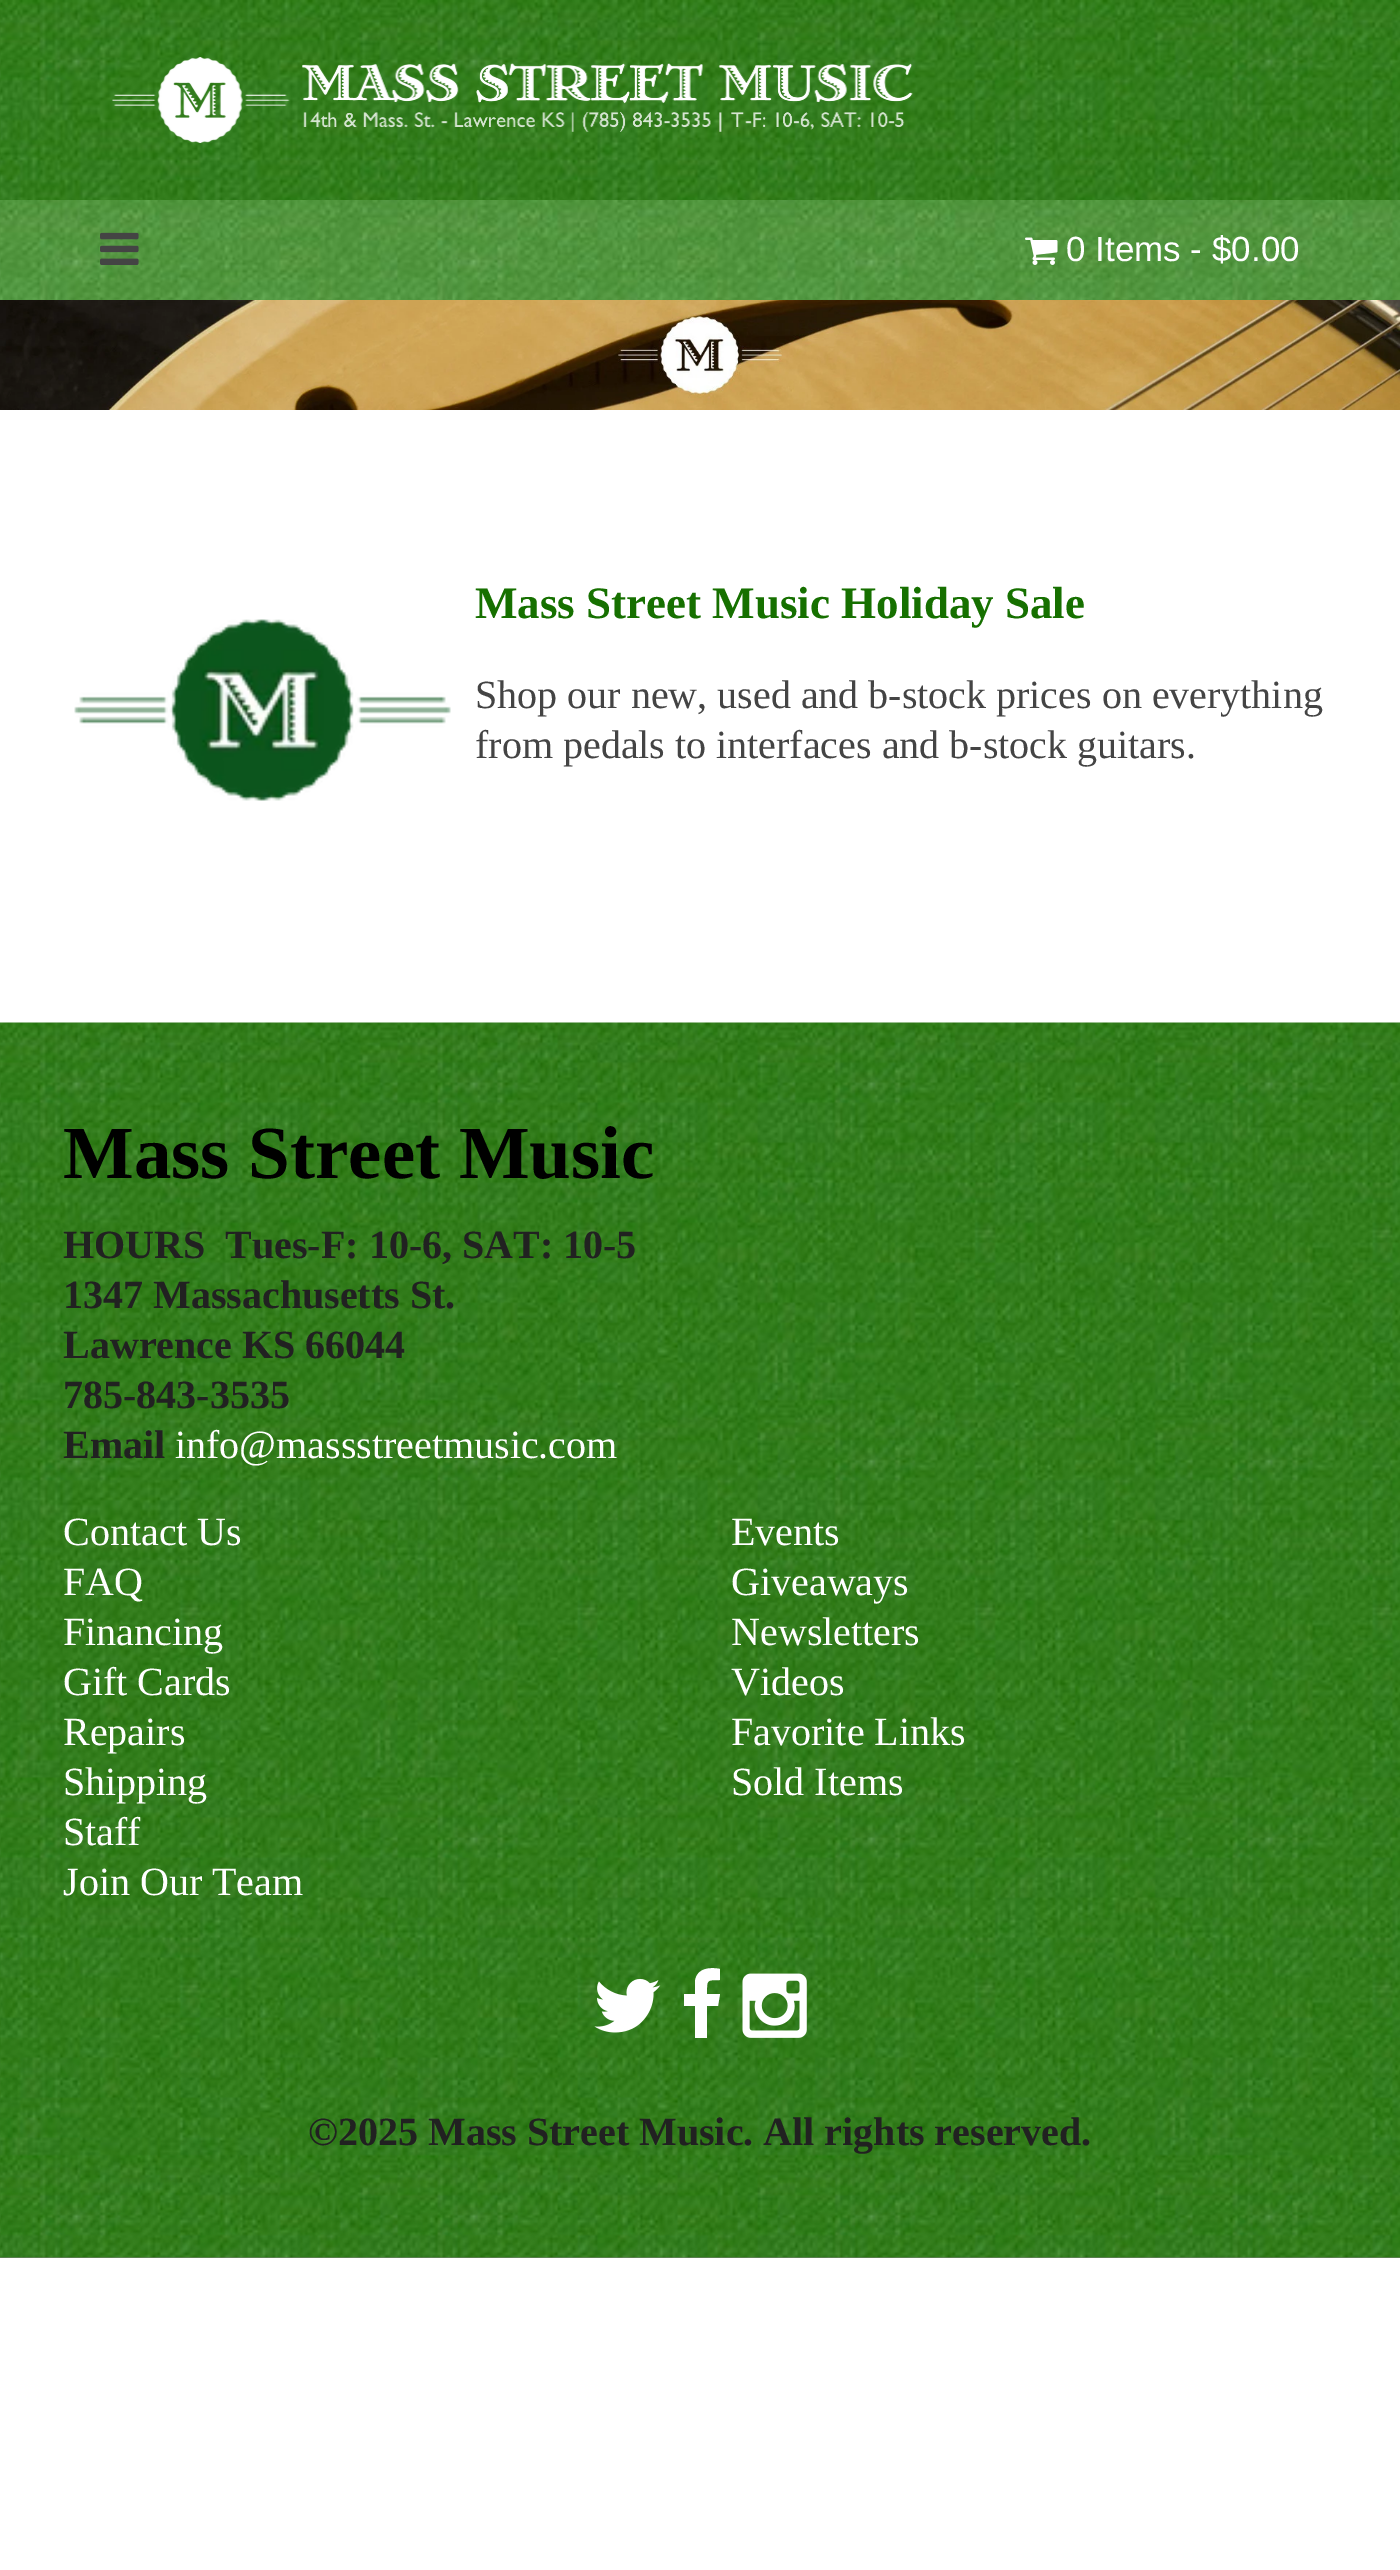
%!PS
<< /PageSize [1400 2570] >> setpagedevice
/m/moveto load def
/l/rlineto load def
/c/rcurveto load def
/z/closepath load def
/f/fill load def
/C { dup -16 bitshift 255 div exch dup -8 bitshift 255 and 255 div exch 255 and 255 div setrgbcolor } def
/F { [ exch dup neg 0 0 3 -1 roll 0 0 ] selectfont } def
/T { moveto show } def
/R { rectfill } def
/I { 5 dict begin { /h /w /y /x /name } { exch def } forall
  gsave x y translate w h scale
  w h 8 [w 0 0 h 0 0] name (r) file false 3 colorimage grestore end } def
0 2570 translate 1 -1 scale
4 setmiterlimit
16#FFFFFF C
0 0 1400 2570 R
(1.rgb) 0 0 1400 200 I
(2.rgb) 112 57 801 86 I
(3.rgb) 0 200 1400 100 I
(4.rgb) 100 232 39 33 I
(5.rgb) 1025 237 33 28 I
/LiberationSans-Regular 35 F
(0 Items - $0.00) 1066 261 T
(6.rgb) 0 300 1400 110 I
/LiberationSerif-Bold 45 F
16#167000 C
(Mass Street Music Holiday Sale) 475 618 T
(7.rgb) 74 619 377 182 I
/LiberationSerif-Regular 40 F
16#444444 C
(Shop our new, used and b-stock prices on everything) 475 708 T
(from pedals to interfaces and b-stock guitars.) 475 758 T
16#808080 C
0 2257 1400 1 R
(8.rgb) 0 1022 1400 1236 I
/LiberationSerif-Bold 75 F
16#000000 C
(Mass Street Music) 63 1178 T
/LiberationSerif-Bold 40 F
16#212121 C
(HOURS  Tues-F: 10-6, SAT: 10-5) 63 1258 T
(1347 Massachusetts St.) 63 1308 T
(Lawrence KS 66044) 63 1358 T
(785-843-3535) 63 1408 T
(Email) 63 1458 T
/LiberationSerif-Regular 40 F
16#FFFFFF C
(info@massstreetmusic.com) 175 1458 T
(Contact Us) 63 1545 T
(FAQ) 63 1595 T
(Financing) 63 1645 T
(Gift Cards) 63 1695 T
(Repairs) 63 1745 T
(Shipping) 63 1795 T
(Staff) 63 1845 T
(Join Our Team) 63 1895 T
(Events) 731 1545 T
(Giveaways) 731 1595 T
(Newsletters) 731 1645 T
(Videos) 731 1695 T
(Favorite Links) 731 1745 T
(Sold Items) 731 1795 T
(9.rgb) 594 1978 67 55 I
720 1969 m 0 11 l -14 0 -13 0 -13 14 c 13 0 l -2 12 l -11 0 l 0 32 l -12 0 l 0 -32 l -11 0 l 0 -12 l 11 0 l 0 -13 l 2 -13 15 -14 25 -12 c z f
(10.rgb) 742 1973 65 65 I
/LiberationSerif-Bold 40 F
16#212121 C
(©2025 Mass Street Music. All rights reserved.) 308 2145 T
showpage
